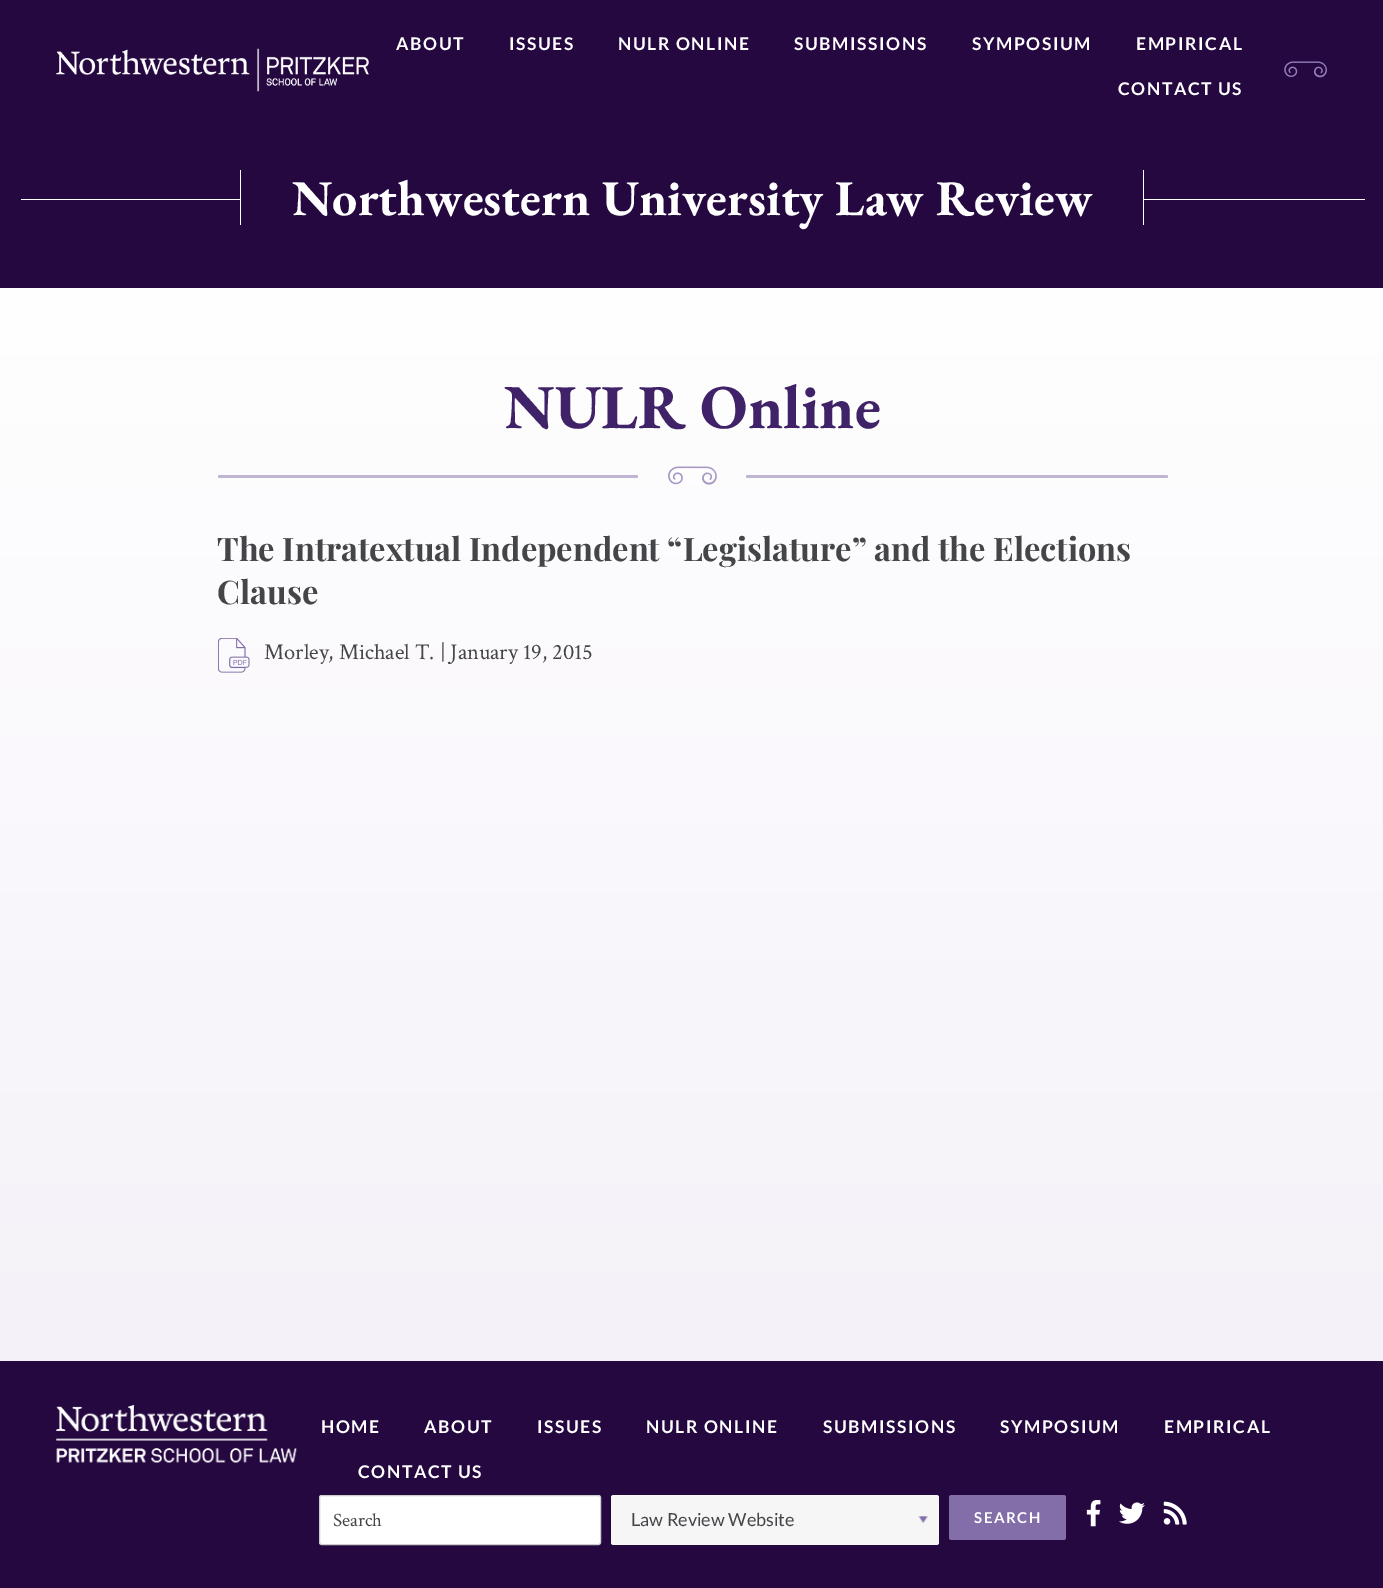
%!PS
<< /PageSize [1383 1588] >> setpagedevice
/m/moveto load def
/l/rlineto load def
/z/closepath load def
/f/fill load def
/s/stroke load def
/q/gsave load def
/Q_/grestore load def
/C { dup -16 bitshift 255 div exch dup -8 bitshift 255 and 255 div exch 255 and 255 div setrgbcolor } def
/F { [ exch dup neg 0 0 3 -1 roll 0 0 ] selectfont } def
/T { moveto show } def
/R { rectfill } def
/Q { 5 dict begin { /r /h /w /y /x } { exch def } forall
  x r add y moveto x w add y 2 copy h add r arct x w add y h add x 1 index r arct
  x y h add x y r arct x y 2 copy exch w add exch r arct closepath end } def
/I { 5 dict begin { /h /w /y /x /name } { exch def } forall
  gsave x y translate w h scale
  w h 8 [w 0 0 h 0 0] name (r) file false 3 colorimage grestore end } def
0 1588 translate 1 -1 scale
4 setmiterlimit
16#260841 C
0 0 1383 1588 R
(1.rgb) 56 48 313 44 I
/Lato-Bold 17.5 F
16#FFFFFF C
396 50 m 1.6 0 (ABOUT) ashow
509 50 m 1.6 0 (ISSUES) ashow
618 50 m 1.6 0 (NULR ONLINE) ashow
794 50 m 1.6 0 (SUBMISSIONS) ashow
972 50 m 1.6 0 (SYMPOSIUM) ashow
1136 50 m 1.6 0 (EMPIRICAL) ashow
1118 95 m 1.6 0 (CONTACT US) ashow
(2.rgb) 1284 61 43 17 I
21 199 1344 1 R
16#260841 C
241 199 902 1 R
16#FFFFFF C
1143 170 1 55 R
240 170 1 55 R
/EBGaramond-Bold 50 F
(Northwestern University Law Review) 292 215 T
q 0 288 m 1383 0 l 0 1073 l -1383 0 l z clip newpath
<< /ShadingType 2 /ColorSpace /DeviceRGB /Coords [692 287 692 1361] /Extend [true true] /Function << /FunctionType 2 /Domain [0 1] /C0 [1 1 1] /C1 [.957 .945 .973] /N 1 >> >> shfill Q_
/EBGaramond-Bold 62.5 F
16#402268 C
(NULR Online) 504 428 T
(3.rgb) 668 466 49 19 I
16#C0B6D4 C
218 475 420 3 1.5 Q f
746 475 422 3 1.5 Q f
/PlayfairDisplay-Bold 32.5 F
16#434549 C
(The Intratextual Independent “Legislature” and the Elections) 217 561 T
(Clause) 217 604 T
(4.rgb) 218 638 32 35 I
/CrimsonText-Regular 22.5 F
(Morley, Michael T. | January 19, 2015) 264 659 T
(5.rgb) 56 1405 241 58 I
/Lato-Bold 17.5 F
16#FFFFFF C
321 1433 m 1.6 0 (HOME) ashow
424 1433 m 1.6 0 (ABOUT) ashow
537 1433 m 1.6 0 (ISSUES) ashow
646 1433 m 1.6 0 (NULR ONLINE) ashow
823 1433 m 1.6 0 (SUBMISSIONS) ashow
1000 1433 m 1.6 0 (SYMPOSIUM) ashow
1164 1433 m 1.6 0 (EMPIRICAL) ashow
358 1478 m 1.6 0 (CONTACT US) ashow
319.5 1495.5 281 49 2 Q q f Q_
16#CCCCCC C
s
/CrimsonText-Regular 19 F
16#434549 C
(Search) 333 1526 T
16#F6F6F6 C
611 1495 328 50 2.5 Q f
/Lato-Regular 18 F
16#434549 C
(Law Review Website) 631 1526 T
(6.rgb) 918 1516 10 7 I
16#836EAA C
949 1495 117 45 2.5 Q f
/Lato-Bold 15 F
16#FFFFFF C
974 1523 m 1.5 0 (SEARCH) ashow
(7.rgb) 1086 1500 15 27 I
(8.rgb) 1119 1502 26 22 I
(9.rgb) 1163 1501 24 24 I
showpage
